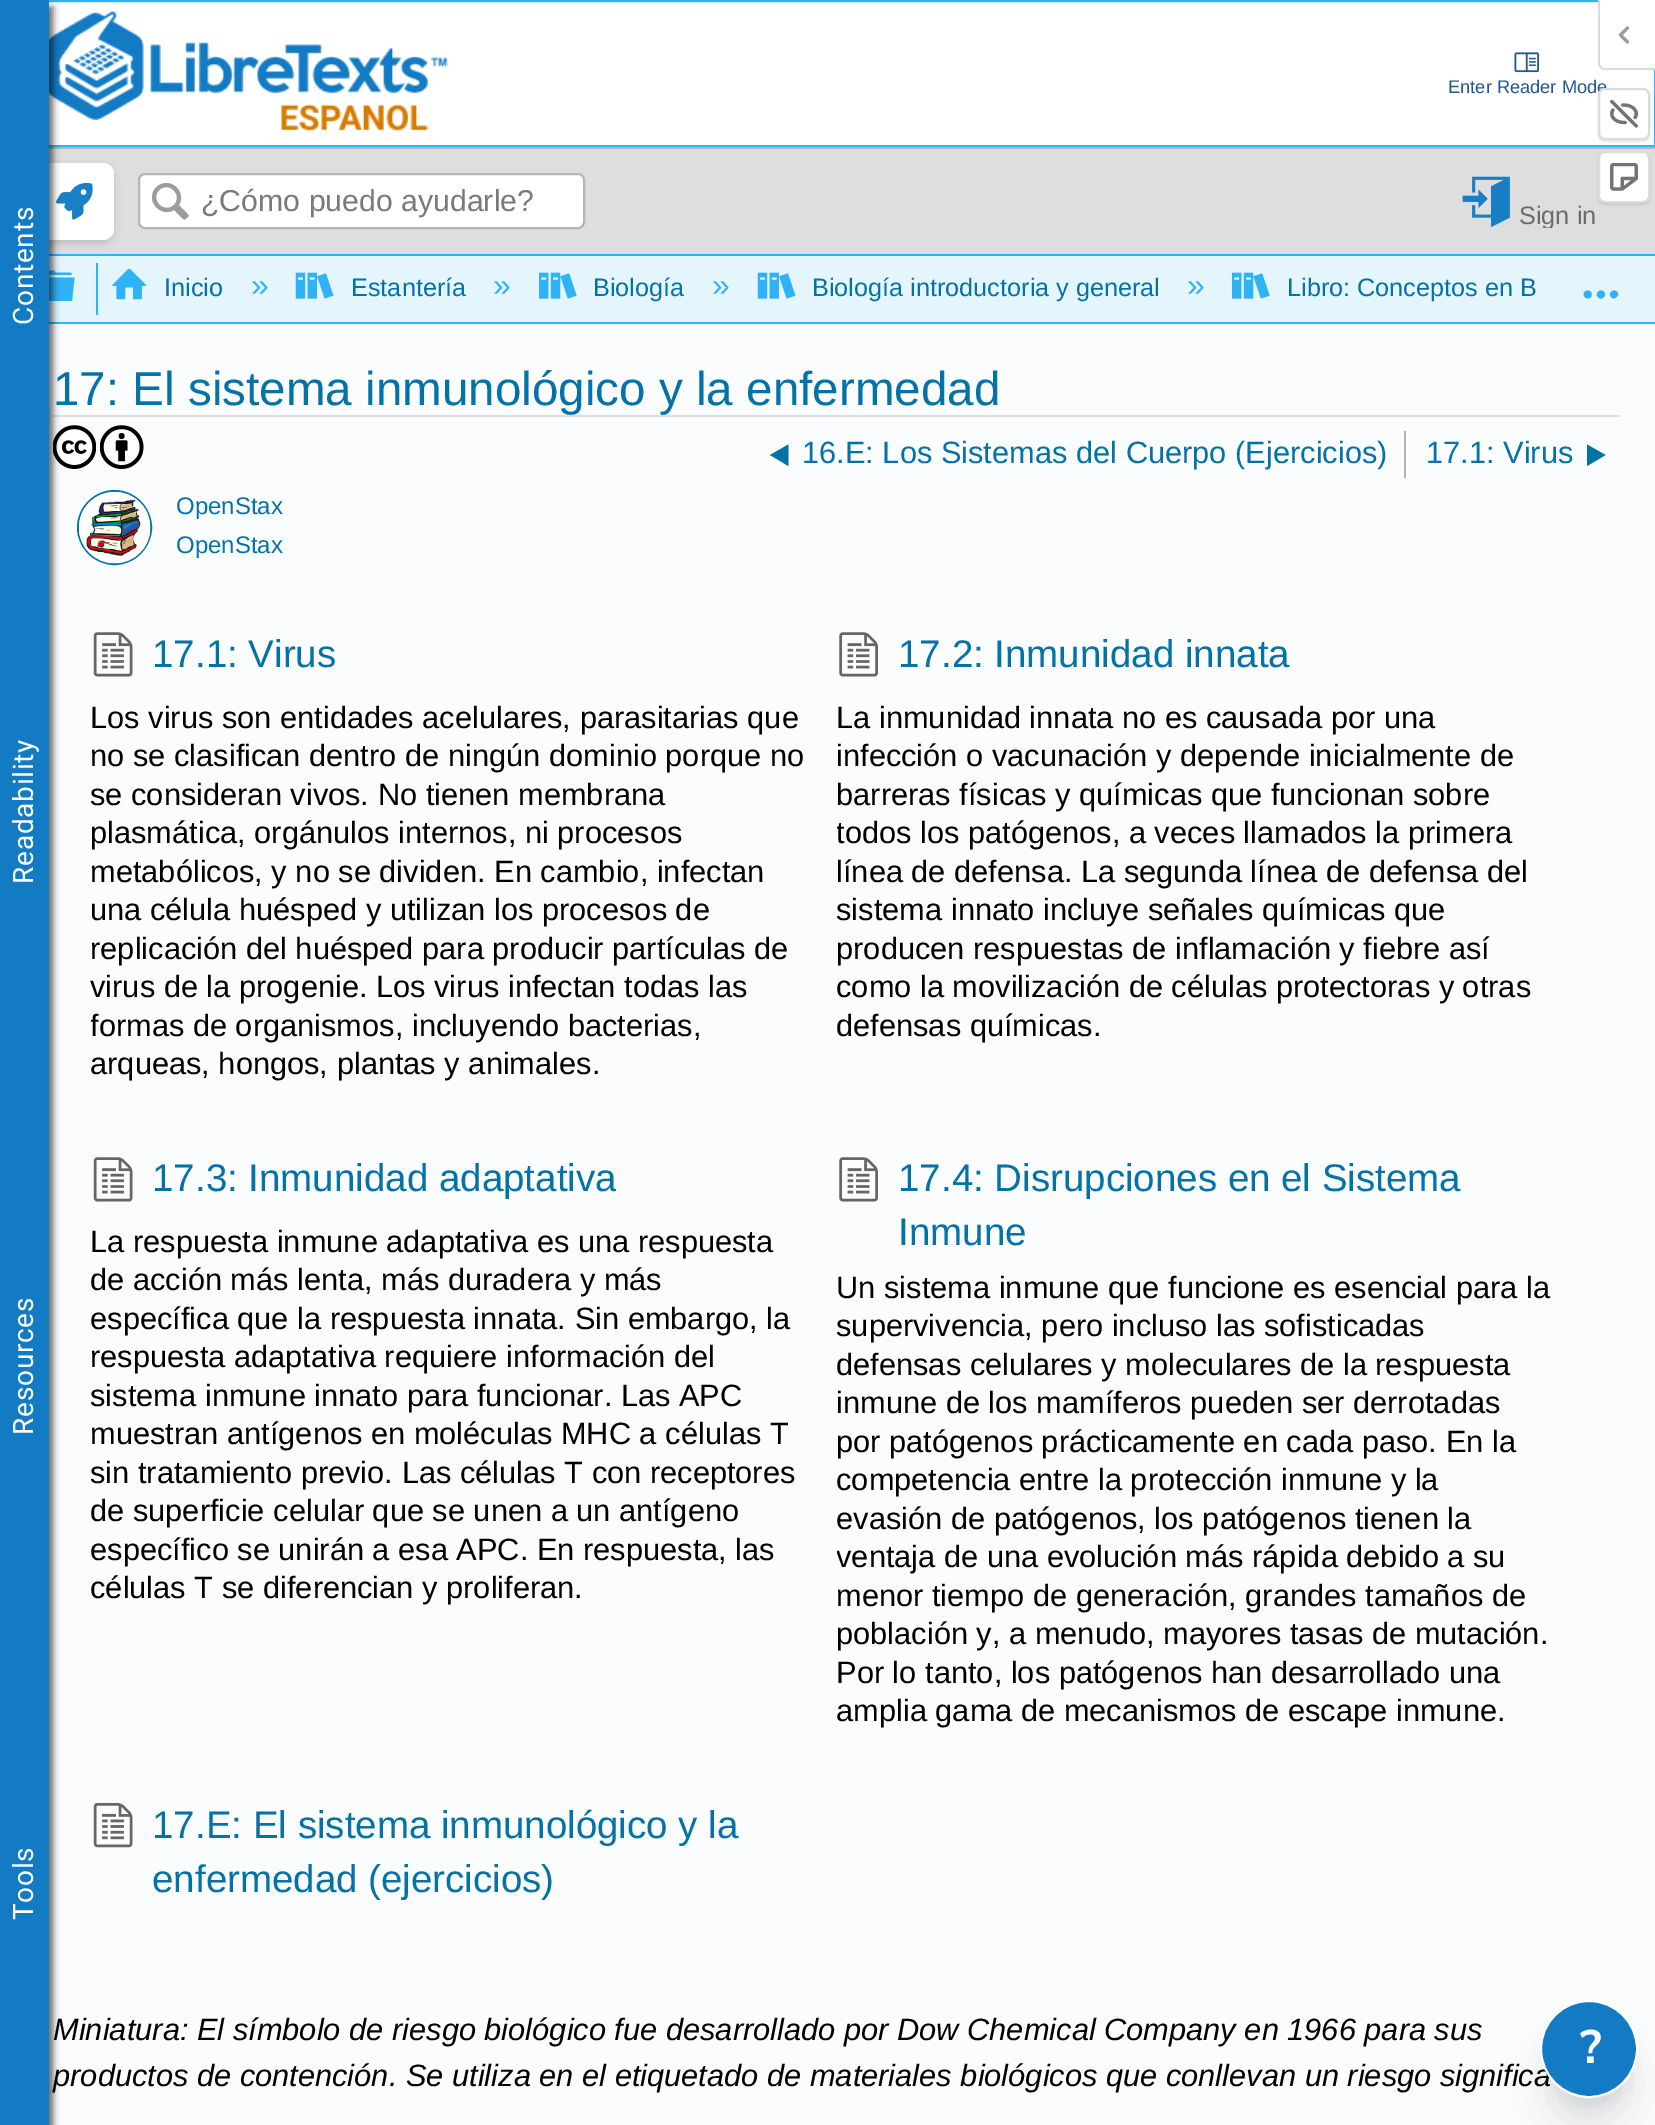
%!PS
<< /PageSize [1655 2125] /PageUsesTransparency true >> setpagedevice
/m/moveto load def
/l/rlineto load def
/c/rcurveto load def
/z/closepath load def
/f/fill load def
/s/stroke load def
/q/gsave load def
/Q_/grestore load def
/w/setlinewidth load def
/C { dup -16 bitshift 255 div exch dup -8 bitshift 255 and 255 div exch 255 and 255 div setrgbcolor } def
/F { [ exch dup neg 0 0 3 -1 roll 0 0 ] selectfont } def
/T { moveto show } def
/R { rectfill } def
/A { dup .setfillconstantalpha .setstrokeconstantalpha } def
/O { newpath 0 360 arc closepath } def
/Q { 5 dict begin { /r /h /w /y /x } { exch def } forall
  x r add y moveto x w add y 2 copy h add r arct x w add y h add x 1 index r arct
  x y h add x y r arct x y 2 copy exch w add exch r arct closepath end } def
/S { 12 dict begin { /a /b /q /h /w /y /x } { exch def } forall gsave /was 0 def
  9 -2 -9 { dup b mul 4 div /e exch def 1 sub .425 mul 2.718 exch exp 1 add a .99 .min exch div /now exch def
    1 1 now sub 1 was sub div sub A /was now def
    w h .min e 2 mul add 0 gt { x e sub y e sub w e 2 mul add h e 2 mul add
      q e add b .6 mul add w h .min 2 div e add .min 0 .max Q fill } if } for grestore end } def
/I { 5 dict begin { /h /w /y /x /name } { exch def } forall
  gsave x y translate w h scale
  w h 8 [w 0 0 h 0 0] name (r) file false 3 colorimage grestore end } def
0 .pushpdf14devicefilter
0 2125 translate 1 -1 scale
4 setmiterlimit
16#FBFCFE C
0 0 1655 2125 R
16#FFFFFF C
49 2 1605 143 R
16#30B3F6 C
2 w
1 1 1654 145 rectstroke
(1.rgb) 49 11 399 121 I
16#DEDEDE C
49 149 1606 105 R
16#B6B6B6 C
49 147 1606 2 R
16#E5F5FE C
49 256 1606 66 R
16#30B3F6 C
49 254 1606 2 R
16#080808 C
39 168 73 74 9 4.5 .2 S
16#FFFFFF C
37 163 77 77 11 Q f
(3.rgb) 56 182 37 38 I
16#30B3F6 C
49 322 1606 2 R
37 277.5 m 37.5 0 l -2.5 23.5 l -33 0 l z 71 272.5 m 1 2.5 l -33 0 l 2.5 -4.5 l 13 0 l 1 2 l z f
16#DDDDDD C
53 415 1566 2 R
(10.rgb) 53 425 43 44 I
16#000000 C
4 7 49 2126 0 3.5 .6 S
16#127BC4 C
0 0 49 2125 R
/Roboto-Regular 28 F
16#FFFFFF C
q 33 325 translate -90 rotate 0 0 m .75 0 (Contents) ashow Q_
q 33 884 translate -90 rotate 0 0 m .75 0 (Readability) ashow Q_
q 33 1435 translate -90 rotate 0 0 m .75 0 (Resources) ashow Q_
q 33 1920 translate -90 rotate 0 0 m .75 0 (Tools) ashow Q_
(2.rgb) 1514 52 26 21 I
/LiberationSans-Regular 18.25 F
16#235A8B C
(Enter Reader Mode) 1448 93 T
16#FFFFFF C
139 174 445 54 6 Q q f Q_
16#B6B6B6 C
s
(4.rgb) 151 182 38 38 I
/LiberationSans-Regular 30.25 F
16#797979 C
(¿Cómo puedo ayudarle?) 201 211 T
(5.rgb) 1462 176 48 52 I
q
1460 175 147 53 rectclip
/LiberationSans-Regular 25.25 F
16#6A6B6B C
(Sign in) 1519 224 T
Q_
16#30B3F6 C
96 263 2 52 R
(6.rgb) 112 268 35 32 I
/LiberationSans-Regular 25.25 F
16#0372A6 C
(Inicio) 164 296 T
/LiberationSans-Regular 32 F
16#30B3F6 C
(») 251 296 T
(7.rgb) 295 272 39 27 I
/LiberationSans-Regular 25.25 F
16#0372A6 C
(Estantería) 351 296 T
/LiberationSans-Regular 32 F
16#30B3F6 C
(») 493 296 T
(8.rgb) 539 272 38 27 I
/LiberationSans-Regular 25.25 F
16#0372A6 C
(Biología) 593 296 T
/LiberationSans-Regular 32 F
16#30B3F6 C
(») 712 296 T
(7.rgb) 757 272 39 27 I
/LiberationSans-Regular 25.25 F
16#0372A6 C
(Biología introductoria y general) 812 296 T
/LiberationSans-Regular 32 F
16#30B3F6 C
(») 1187 296 T
(8.rgb) 1232 272 38 27 I
/LiberationSans-Regular 25.25 F
16#0372A6 C
(Libro: Conceptos en B) 1287 296 T
(9.rgb) 1583 290 36 9 I
/LiberationSans-Regular 47.6 F
(17: El sistema inmunológico y la enfermedad) 53 405 T
(11.rgb) 100 425 44 44 I
16#B4B4B4 C
1404 431 2 47 R
16#0372A6 C
788.5 444.5 m 0 21.5 l -18.5 -11 l z f
/LiberationSans-Regular 30.8 F
(16.E: Los Sistemas del Cuerpo \(Ejercicios\)) 802 463 T
(17.1: Virus) 1426 463 T
1587 444.5 m 0 21.5 l 18.5 -11 l z f
114.5 527.5 36.5 O s
(12.rgb) 78 491 73 73 I
/LiberationSans-Regular 24 F
(OpenStax) 176 514 T
(OpenStax) 176 553 T
(13.rgb) 93 632 40 45 I
/LiberationSans-Regular 38.5 F
(17.1: Virus) 152 667 T
/LiberationSans-Regular 30.8 F
16#000000 C
(Los virus son entidades acelulares, parasitarias que) 90 728 T
(no se clasifican dentro de ningún dominio porque no) 90 766 T
(se consideran vivos. No tienen membrana) 90 805 T
(plasmática, orgánulos internos, ni procesos) 90 843 T
(metabólicos, y no se dividen. En cambio, infectan) 90 882 T
(una célula huésped y utilizan los procesos de) 90 920 T
(replicación del huésped para producir partículas de) 90 959 T
(virus de la progenie. Los virus infectan todas las) 90 997 T
q
91 698 714 385 rectclip
(formas de organismos, incluyendo bacterias,) 90 1036 T
Q_
(arqueas, hongos, plantas y animales.) 90 1074 T
(14.rgb) 839 632 39 45 I
/LiberationSans-Regular 38.5 F
16#0372A6 C
(17.2: Inmunidad innata) 898 667 T
/LiberationSans-Regular 30.8 F
16#000000 C
(La inmunidad innata no es causada por una) 836 728 T
(infección o vacunación y depende inicialmente de) 836 766 T
(barreras físicas y químicas que funcionan sobre) 836 805 T
q
837 698 714 347 rectclip
(todos los patógenos, a veces llamados la primera) 836 843 T
Q_
(línea de defensa. La segunda línea de defensa del) 836 882 T
(sistema innato incluye señales químicas que) 836 920 T
(producen respuestas de inflamación y fiebre así) 836 959 T
(como la movilización de células protectoras y otras) 836 997 T
(defensas químicas.) 836 1036 T
(13.rgb) 93 1157 40 45 I
q
91 1153 525 62 rectclip
/LiberationSans-Regular 38.5 F
16#0372A6 C
(17.3: Inmunidad adaptativa) 152 1191 T
Q_
(La respuesta inmune adaptativa es una respuesta) 90 1252 T
(de acción más lenta, más duradera y más) 90 1290 T
(específica que la respuesta innata. Sin embargo, la) 90 1329 T
(respuesta adaptativa requiere información del) 90 1367 T
(sistema inmune innato para funcionar. Las APC) 90 1406 T
(muestran antígenos en moléculas MHC a células T) 90 1444 T
(sin tratamiento previo. Las células T con receptores) 90 1483 T
(de superficie celular que se unen a un antígeno) 90 1521 T
(específico se unirán a esa APC. En respuesta, las) 90 1560 T
(células T se diferencian y proliferan.) 90 1598 T
(14.rgb) 839 1157 39 45 I
/LiberationSans-Regular 38.5 F
16#0372A6 C
(17.4: Disrupciones en el Sistema) 898 1191 T
(Inmune) 898 1245 T
/LiberationSans-Regular 30.8 F
16#000000 C
(Un sistema inmune que funcione es esencial para la) 836 1298 T
(supervivencia, pero incluso las sofisticadas) 836 1336 T
(defensas celulares y moleculares de la respuesta) 836 1375 T
(inmune de los mamíferos pueden ser derrotadas) 836 1413 T
(por patógenos prácticamente en cada paso. En la) 836 1452 T
(competencia entre la protección inmune y la) 836 1490 T
(evasión de patógenos, los patógenos tienen la) 836 1529 T
q
837 1269 714 462 rectclip
(ventaja de una evolución más rápida debido a su) 836 1567 T
Q_
(menor tiempo de generación, grandes tamaños de) 836 1606 T
(población y, a menudo, mayores tasas de mutación.) 836 1644 T
(Por lo tanto, los patógenos han desarrollado una) 836 1683 T
(amplia gama de mecanismos de escape inmune.) 836 1721 T
(15.rgb) 93 1803 40 45 I
/LiberationSans-Regular 38.5 F
16#0372A6 C
(17.E: El sistema inmunológico y la) 152 1838 T
(enfermedad \(ejercicios\)) 152 1892 T
/LiberationSans-Italic 30.8 F
16#000000 C
(Miniatura: El símbolo de riesgo biológico fue desarrollado por Dow Chemical Company en 1966 para sus) 53 2040 T
(productos de contención. Se utiliza en el etiquetado de materiales biológicos que conllevan un riesgo significa) 53 2086 T
1551 2025 77 77 38.5 9 .1 S
1549 2044 80 81 40 22 .1 S
16#127BC4 C
1589 2049 48 O q f Q_
16#FFFFFF C
s
/NunitoSans-Bold 47 F
(?) 1580 2063 T
1600 0 m 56 0 l 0 68 l -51 0 l -3 0 -5 -2 -5 -5 c z f
16#DBDBDB C
1598 0 m 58 0 l 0 70 l -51 0 l -4 0 -7 -3 -7 -7 c z 1600 0 m 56 0 l 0 68 l -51 0 l -3 0 -5 -2 -5 -5 c z eofill
(16.rgb) 1618 26 12 18 I
16#000000 C
1598 89 52 53 7 1 .1 S
16#FFFFFF C
1599 89 50 50 6 Q q f Q_
16#DBDBDB C
s
(17.rgb) 1610 100 28 28 I
16#000000 C
1598 152 52 53 7 1 .1 S
16#FFFFFF C
1599 152 50 50 6 Q q f Q_
16#DBDBDB C
s
(18.rgb) 1610 163 28 28 I
.poppdf14devicefilter showpage
